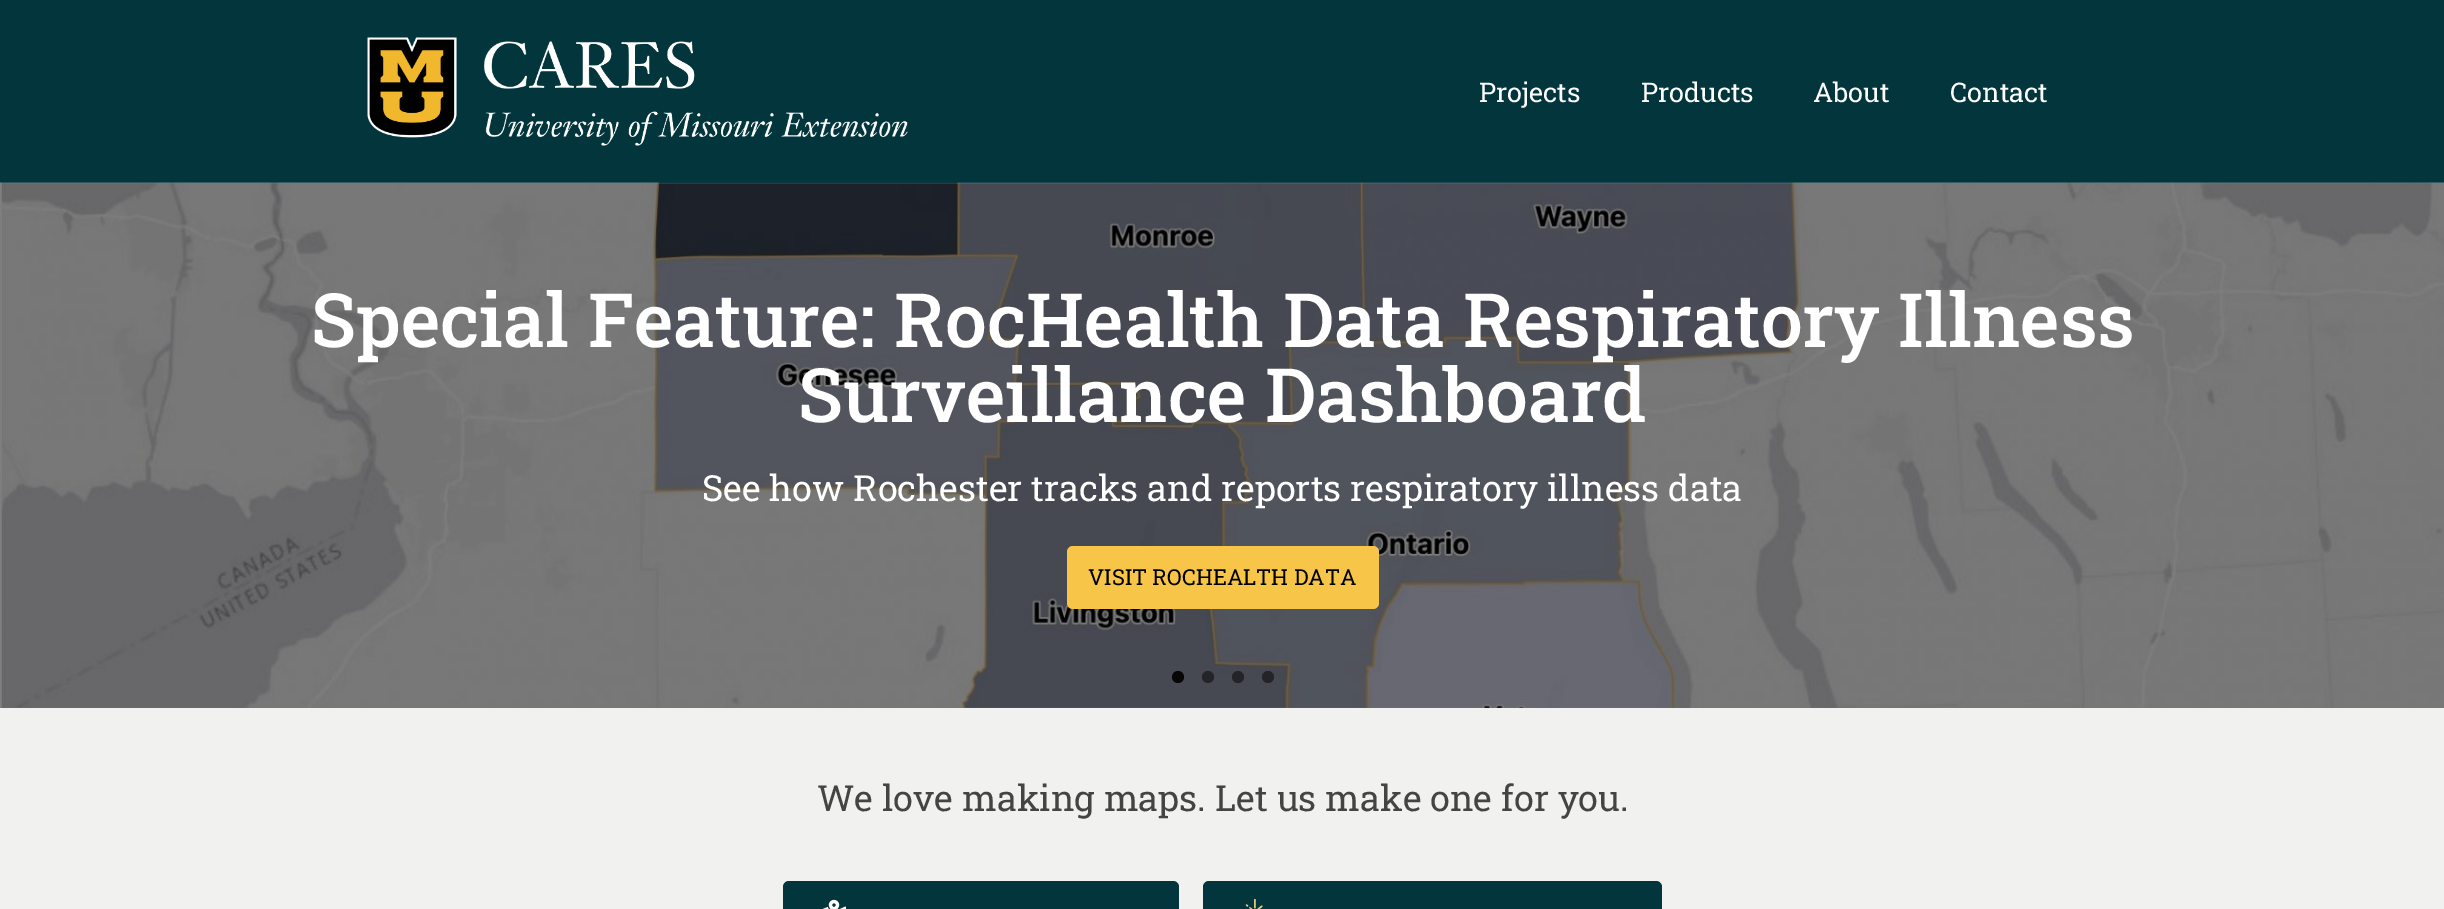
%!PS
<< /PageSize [2444 909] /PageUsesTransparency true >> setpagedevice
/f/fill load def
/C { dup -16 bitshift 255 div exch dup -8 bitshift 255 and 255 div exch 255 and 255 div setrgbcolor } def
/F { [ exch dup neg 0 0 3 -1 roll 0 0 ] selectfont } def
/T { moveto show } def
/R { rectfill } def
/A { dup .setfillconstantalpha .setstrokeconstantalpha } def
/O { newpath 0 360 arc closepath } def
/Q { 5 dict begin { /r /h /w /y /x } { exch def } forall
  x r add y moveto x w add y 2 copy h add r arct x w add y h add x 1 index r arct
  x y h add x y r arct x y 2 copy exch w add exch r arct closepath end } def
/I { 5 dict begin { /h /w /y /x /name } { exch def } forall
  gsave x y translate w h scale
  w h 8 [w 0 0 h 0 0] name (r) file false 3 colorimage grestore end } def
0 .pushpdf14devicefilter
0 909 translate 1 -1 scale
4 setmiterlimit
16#02353C C
0 0 2444 909 R
(1.rgb) 367 37 541 109 I
/RobotoSlab-Regular 27 F
16#FFFFFF C
(Projects) 1479 102 T
(Products) 1641 102 T
(About) 1813 102 T
(Contact) 1950 102 T
16#F1F1EF C
0 183 2444 726 R
(2.rgb) 0 182 2444 526 I
/RobotoSlab-Medium 75 F
16#FFFFFF C
(Special Feature: RocHealth Data Respiratory Illness) 311 347 T
(Surveillance Dashboard) 798 422 T
/RobotoSlab-Regular 36 F
(See how Rochester tracks and reports respiratory illness data) 702 501 T
16#F7C548 C
1067 546 312 63 6 Q f
/RobotoSlab-Regular 22 F
16#000000 C
(VISIT ROCHEALTH DATA) 1088 585 T
16#070708 C
1178 677 6 O f
0.5 A
16#000000 C
1208 677 6 O f
1238 677 6 O f
1268 677 6 O f
/RobotoSlab-Regular 36 F
1 A
16#444444 C
(We love making maps. Let us make one for you.) 817 811 T
16#02353C C
783 881 396 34 6 Q f
(3.rgb) 822 899 24 10 I
1203 881 459 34 6 Q f
(4.rgb) 1245 899 18 10 I
.poppdf14devicefilter showpage
